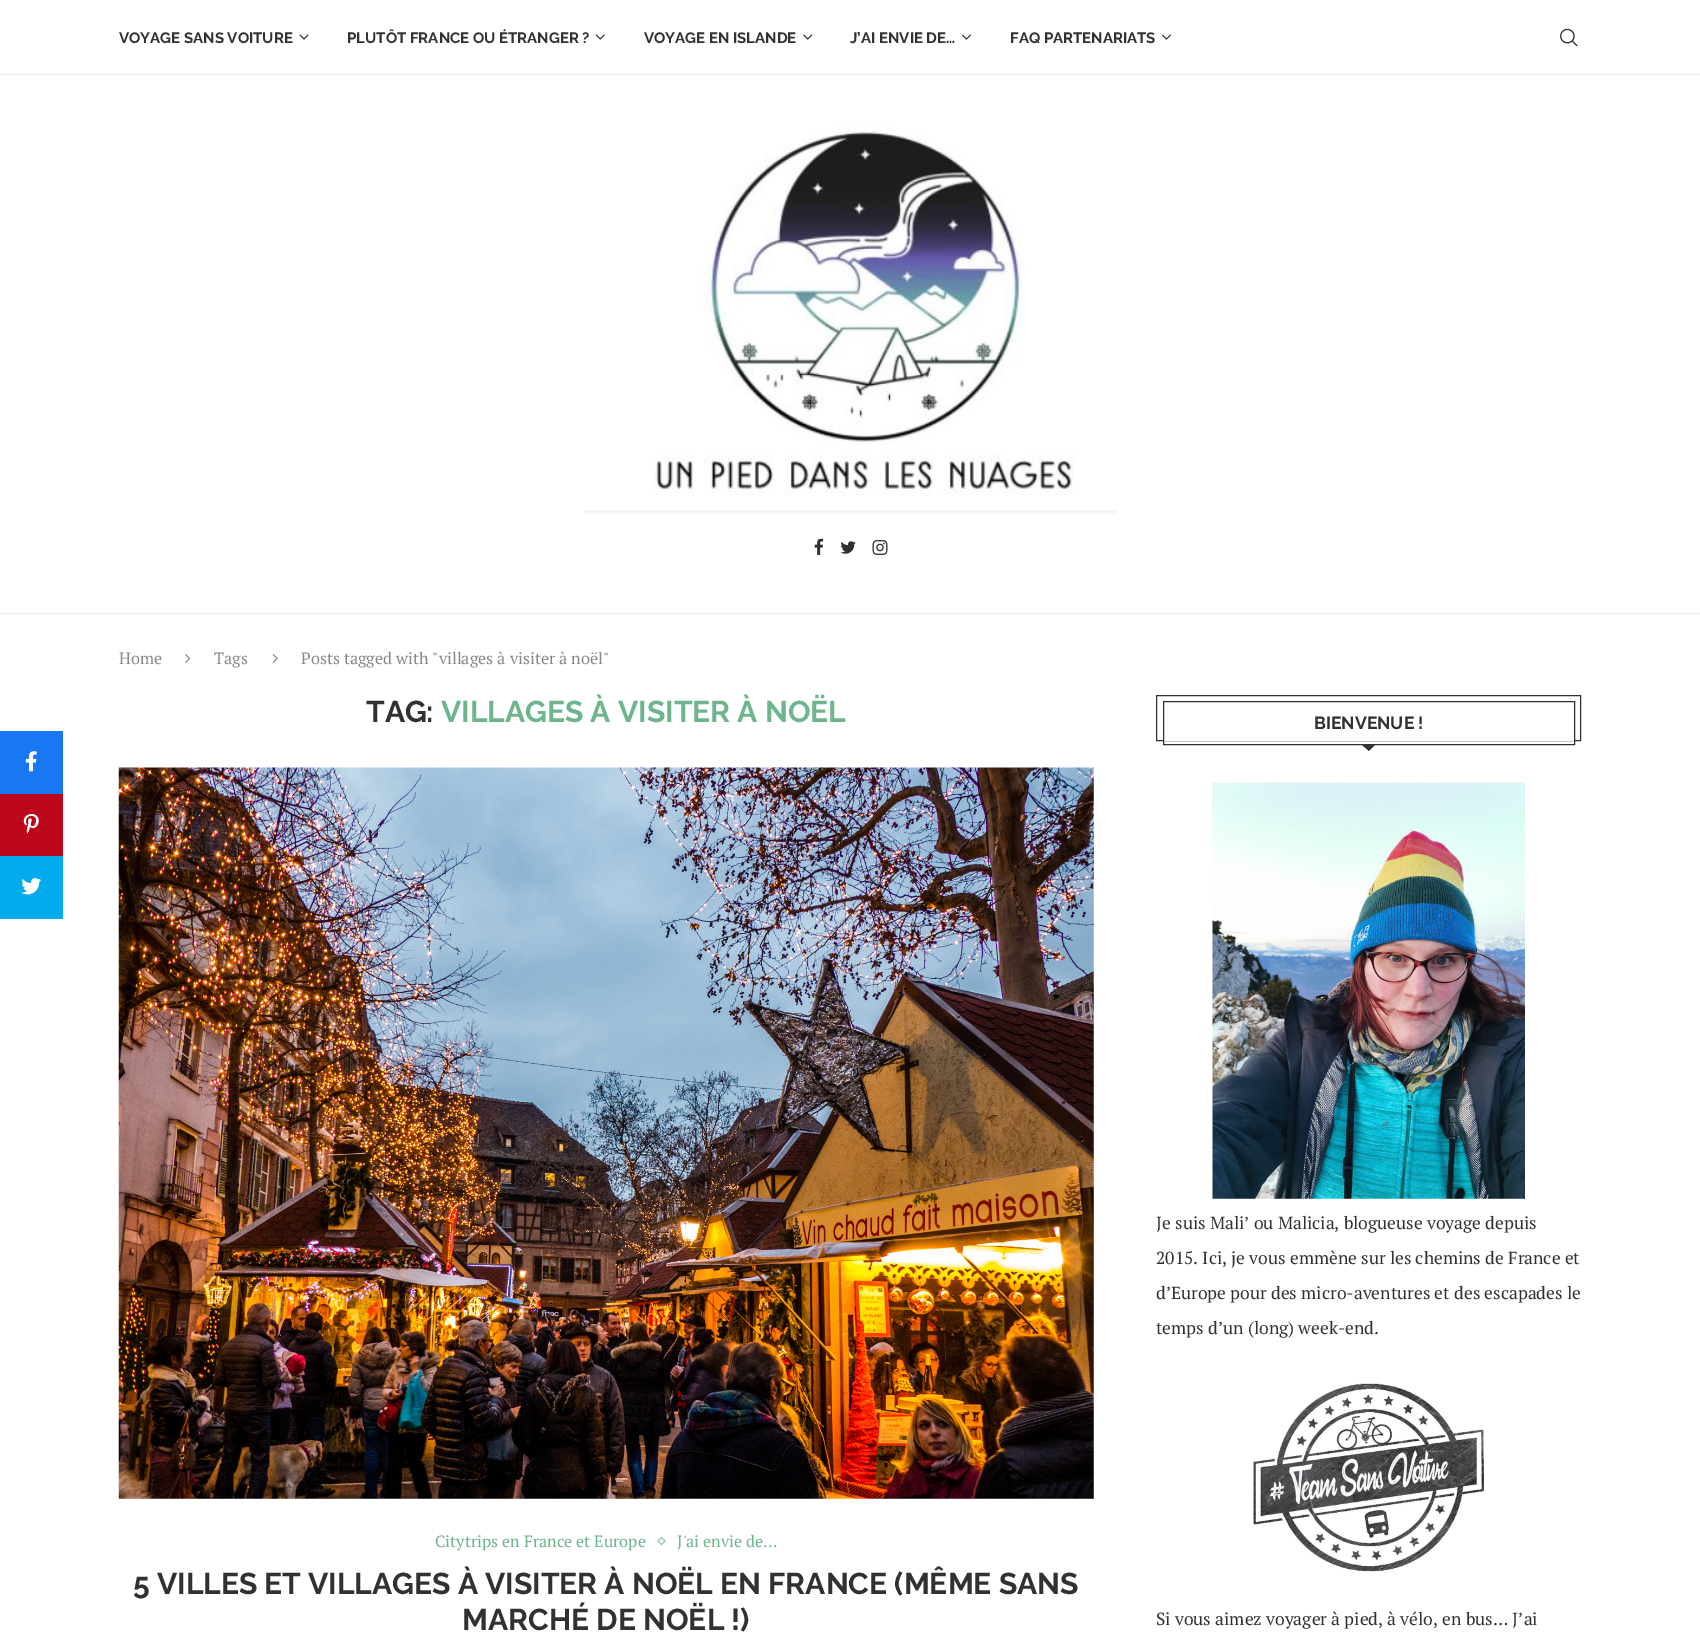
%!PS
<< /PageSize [1700 1650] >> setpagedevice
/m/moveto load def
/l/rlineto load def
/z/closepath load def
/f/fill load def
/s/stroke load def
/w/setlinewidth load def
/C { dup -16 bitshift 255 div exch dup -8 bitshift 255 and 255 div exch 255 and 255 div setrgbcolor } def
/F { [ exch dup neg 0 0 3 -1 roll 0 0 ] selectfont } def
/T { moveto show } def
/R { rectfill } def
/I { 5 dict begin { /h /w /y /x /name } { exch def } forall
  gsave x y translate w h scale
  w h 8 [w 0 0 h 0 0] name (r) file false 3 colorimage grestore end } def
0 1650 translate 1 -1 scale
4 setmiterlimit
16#FFFFFF C
0 0 1700 1650 R
16#1877F2 C
0 731 63 63 R
(1.rgb) 25 751 12 21 I
16#BD081C C
0 794 63 62 R
(2.rgb) 23 814 16 20 I
16#00ACED C
0 856 63 63 R
(3.rgb) 21 878 21 17 I
16#ECECEC C
0 74 1700 1 R
/Raleway-Bold 15 F
16#313131 C
(VOYAGE SANS VOITURE) 119 43 T
(4.rgb) 299 34 10 6 I
(PLUTÔT FRANCE OU ÉTRANGER ?) 347 43 T
(5.rgb) 595 34 10 6 I
(VOYAGE EN ISLANDE) 644 43 T
(6.rgb) 803 34 10 6 I
(J’AI ENVIE DE…) 850 43 T
(7.rgb) 962 34 9 6 I
(FAQ PARTENARIATS) 1010 43 T
(7.rgb) 1162 34 9 6 I
(8.rgb) 1560 28 18 19 I
16#ECECEC C
0 613 1700 1 R
(9.rgb) 584 125 534 389 I
(10.rgb) 814 538 10 17 I
(11.rgb) 840 541 16 13 I
(12.rgb) 872 540 16 15 I
/PTSerif-Regular 16.25 F
16#888888 C
(Home) 119 664 T
(13.rgb) 185 654 6 9 I
(Tags) 214 664 T
(14.rgb) 272 654 6 9 I
(Posts tagged with "villages à visiter à noël") 301 664 T
/Raleway-Bold 30 F
16#313131 C
(TAG:) 366 722 T
16#6EB48C C
(VILLAGES À VISITER À NOËL) 441 722 T
(15.rgb) 118 767 976 732 I
/PTSerif-Regular 16.25 F
(Citytrips en France et Europe) 435 1547 T
16#A1CEB4 C
1.3 w
661.5 1537.5 m 3.5 3.5 l -3.5 3.5 l -3.5 -3.5 l z s
16#6EB48C C
(J'ai envie de...) 677 1547 T
/Raleway-Bold 30 F
16#313131 C
(5 VILLES ET VILLAGES À VISITER À NOËL EN FRANCE \(MÊME SANS) 133 1594 T
(MARCHÉ DE NOËL !\)) 462 1630 T
1 w
1156.5 695.5 424 45 rectstroke
16#FFFFFF C
1164 740 410 1 R
16#313131 C
1163.5 701.5 411 43 rectstroke
/Raleway-Bold 17.5 F
(BIENVENUE !) 1314 729 T
1361 744 m 15 0 l -7 7 l z f
(16.rgb) 1212 782 313 417 I
/PTSerif-Regular 17.5 F
(Je suis Mali’ ou Malicia, blogueuse voyage depuis) 1156 1229 T
(2015. Ici, je vous emmène sur les chemins de France et) 1156 1264 T
(d’Europe pour des micro-aventures et des escapades le) 1156 1299 T
(temps d’un \(long\) week-end.) 1156 1334 T
(17.rgb) 1253 1383 231 189 I
(Si vous aimez voyager à pied, à vélo, en bus… J’ai) 1156 1625 T
showpage
